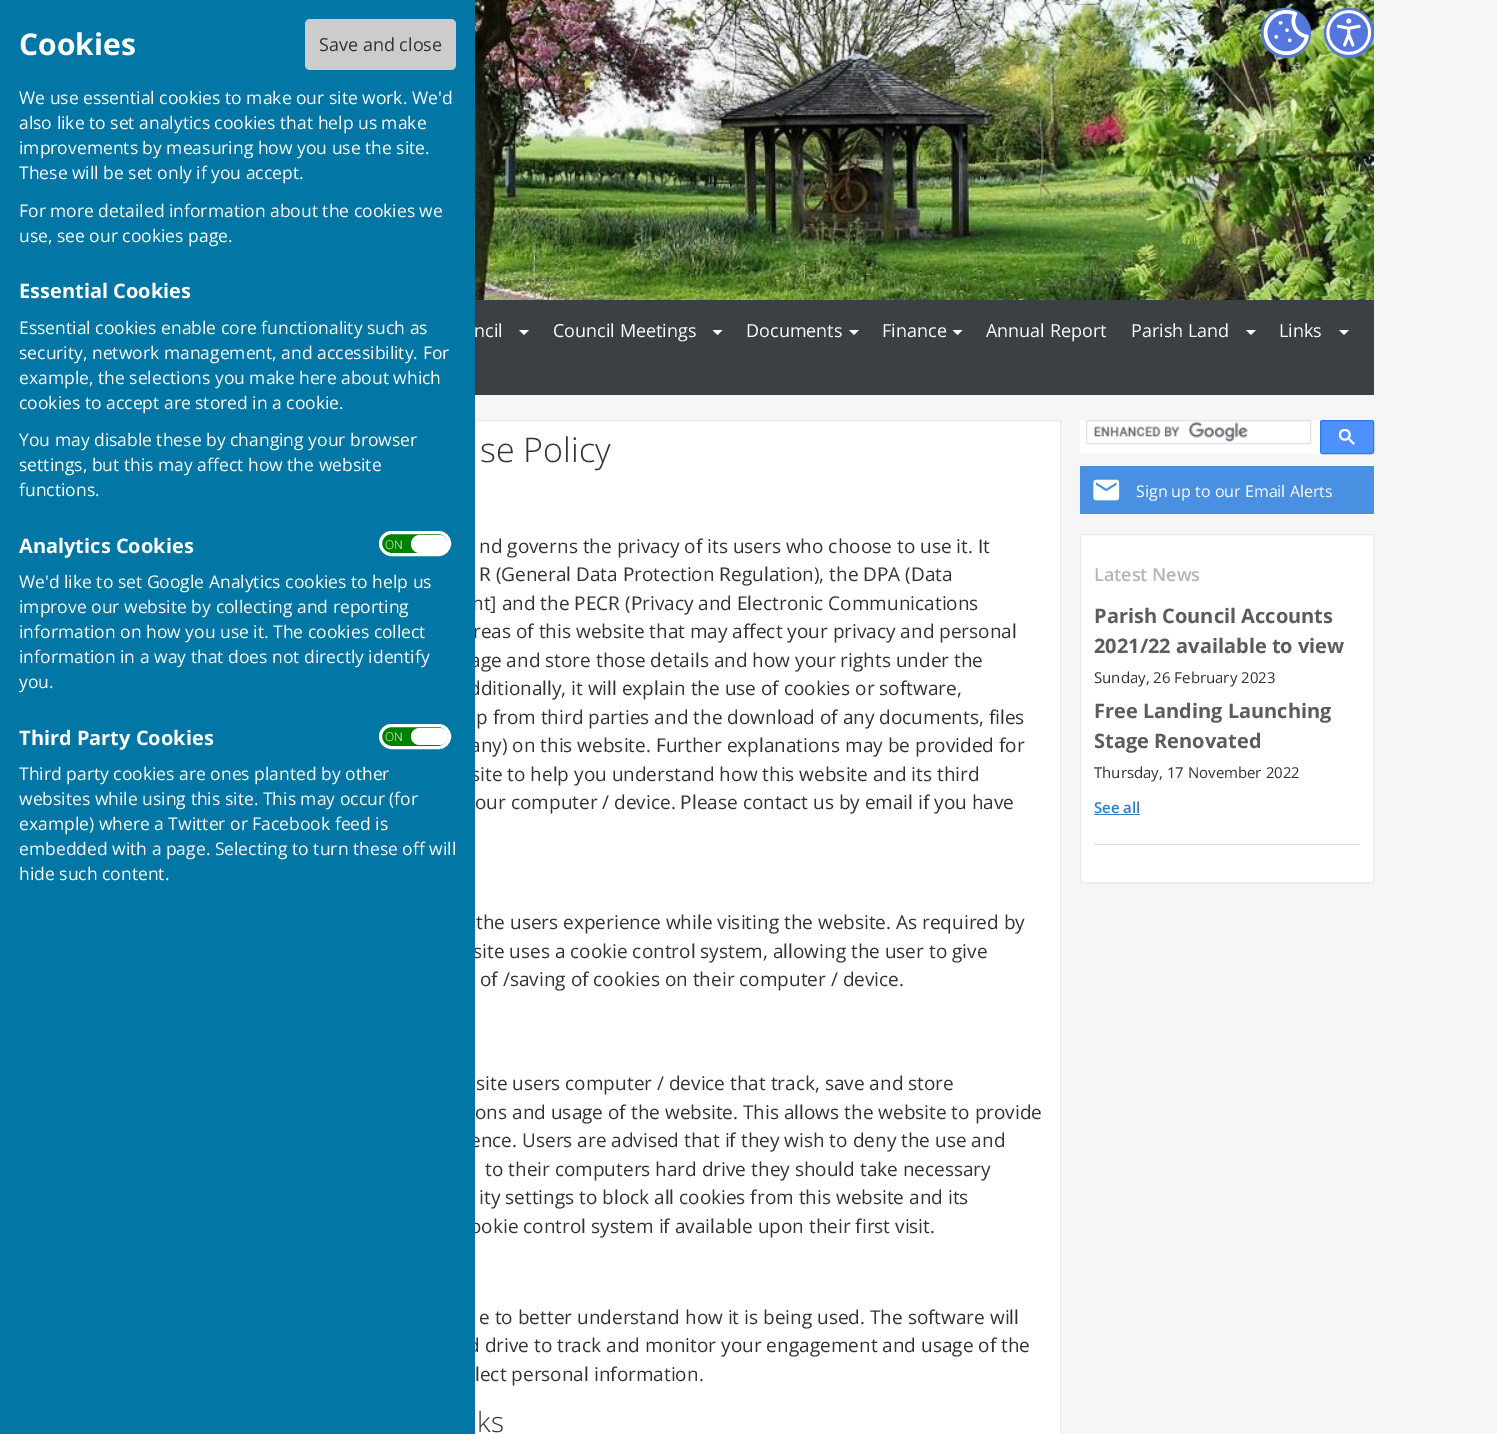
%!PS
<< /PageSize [1497 1434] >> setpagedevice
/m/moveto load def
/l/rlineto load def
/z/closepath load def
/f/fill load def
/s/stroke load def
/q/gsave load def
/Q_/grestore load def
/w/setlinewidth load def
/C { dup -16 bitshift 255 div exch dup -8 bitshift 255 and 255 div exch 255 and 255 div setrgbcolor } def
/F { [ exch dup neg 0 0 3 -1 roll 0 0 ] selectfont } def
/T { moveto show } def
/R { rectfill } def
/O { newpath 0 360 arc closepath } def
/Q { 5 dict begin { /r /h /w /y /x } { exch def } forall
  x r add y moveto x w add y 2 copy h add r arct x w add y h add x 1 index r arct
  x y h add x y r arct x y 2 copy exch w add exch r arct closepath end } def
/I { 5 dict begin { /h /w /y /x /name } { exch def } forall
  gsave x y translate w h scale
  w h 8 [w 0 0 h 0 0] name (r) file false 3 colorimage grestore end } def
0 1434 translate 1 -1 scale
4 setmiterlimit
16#F6F6F6 C
0 0 1497 1434 R
16#FFFFFF C
475 421 585 1013 R
16#EAEAEA C
124.5 420.5 936 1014 rectstroke
/OpenSans-Regular 19 F
16#333333 C
(nt] and the PECR \(Privacy and Electronic Communications) 472 610 T
(reas of this website that may affect your privacy and personal) 473 638 T
(age and store those details and how your rights under the) 470 667 T
(dditionally, it will explain the use of cookies or software,) 469 695 T
(any\) on this website. Further explanations may be provided for) 470 752 T
(site to help you understand how this website and its third) 471 781 T
(site uses a cookie control system, allowing the user to give) 473 958 T
(ence. Users are advised that if they wish to deny the use and) 470 1147 T
(ookie control system if available upon their first visit.) 470 1233 T
(d drive to track and monitor your engagement and usage of the) 468 1352 T
16#0276A5 C
0 0 475 1434 R
/OpenSans-Bold 30 F
16#FFFFFF C
(Cookies) 19 55 T
16#CCCCCC C
305 19 151 51 5 Q f
/OpenSans-Regular 18 F
16#333333 C
(Save and close) 319 51 T
/OpenSans-Regular 17.5 F
16#FFFFFF C
(We use essential cookies to make our site work. We'd) 19 104 T
(also like to set analytics cookies that help us make) 19 129 T
(improvements by measuring how you use the site.) 19 154 T
(These will be set only if you accept.) 19 179 T
(For more detailed information about the cookies we) 19 217 T
(use, see our cookies page.) 19 242 T
/OpenSans-Bold 20 F
(Essential Cookies) 19 298 T
/OpenSans-Regular 17.5 F
(Essential cookies enable core functionality such as) 19 334 T
(security, network management, and accessibility. For) 19 359 T
(example, the selections you make here about which) 19 384 T
(cookies to accept are stored in a cookie.) 19 409 T
(You may disable these by changing your browser) 19 446 T
(settings, but this may affect how the website) 19 471 T
(functions.) 19 496 T
/OpenSans-Bold 20 F
(Analytics Cookies) 19 553 T
16#008000 C
380.5 532.5 69 22 11 Q q f Q_
16#FFFFFF C
3 w
s
/OpenSans-Light 12 F
(ON) 385 549 T
411 535 37 18 9 Q f
/OpenSans-Regular 17.5 F
(We'd like to set Google Analytics cookies to help us) 19 588 T
(improve our website by collecting and reporting) 19 613 T
(information on how you use it. The cookies collect) 19 638 T
(information in a way that does not directly identify) 19 663 T
(you.) 19 688 T
/OpenSans-Bold 20 F
(Third Party Cookies) 19 745 T
16#008000 C
380.5 725.5 69 22 11 Q q f Q_
16#FFFFFF C
s
/OpenSans-Light 12 F
(ON) 385 741 T
411 728 37 17 8.5 Q f
/OpenSans-Regular 17.5 F
(Third party cookies are ones planted by other) 19 780 T
(websites while using this site. This may occur \(for) 19 805 T
(example\) where a Twitter or Facebook feed is) 19 830 T
(embedded with a page. Selecting to turn these off will) 19 855 T
(hide such content.) 19 880 T
(1.rgb) 475 0 899 300 I
16#5577DD C
1286 33 25 O f
(2.rgb) 1263 9 46 47 I
1349 33 25 O f
(3.rgb) 1326 10 46 45 I
16#3B4044 C
475 300 899 95 R
/OpenSans-Regular 18 F
16#FFFFFF C
(ncil) 474 337 T
519 330 m 10 0 l -5 5 l z f
(Council Meetings) 553 337 T
712.5 330 m 10 0 l -5 5 l z f
(Documents) 746 337 T
849 330 m 10 0 l -5 5 l z f
(Finance) 882 337 T
952.5 330 m 10 0 l -5 5 l z f
(Annual Report) 986 337 T
(Parish Land) 1131 337 T
1246 330 m 10 0 l -5 5 l z f
(Links) 1279 337 T
1339 330 m 10 0 l -5 5 l z f
/OpenSans-Light 34 F
16#333333 C
(se Policy) 480 462 T
/OpenSans-Regular 19 F
(nd governs the privacy of its users who choose to use it. It) 479 553 T
(R \(General Data Protection Regulation\), the DPA \(Data) 479 581 T
(p from third parties and the download of any documents, files) 476 724 T
(our computer / device. Please contact us by email if you have) 475 809 T
(the users experience while visiting the website. As required by) 476 929 T
(of /saving of cookies on their computer / device.) 480 986 T
(site users computer / device that track, save and store) 476 1090 T
(ons and usage of the website. This allows the website to provide) 475 1119 T
(to their computers hard drive they should take necessary) 485 1176 T
(ity settings to block all cookies from this website and its) 479 1204 T
(e to better understand how it is being used. The software will) 479 1324 T
(lect personal information.) 475 1381 T
/OpenSans-Light 28 F
(ks) 477 1432 T
16#FFFFFF C
1080 420 294 34 R
16#DFE1E5 C
1 w
1086.5 420.5 224 23 rectstroke
(4.rgb) 1093 422 155 20 I
16#4D90FE C
1320.5 420.5 53 33 2 Q q f Q_
16#3079ED C
s
(5.rgb) 1339 429 16 16 I
16#4A90E2 C
1080 466 294 48 R
(6.rgb) 1093 479 27 22 I
/OpenSans-Regular 16 F
16#FFFFFF C
(Sign up to our Email Alerts) 1136 497 T
1080.5 534.5 m 293 0 l 0 348 l -293 0 l z q f Q_
16#EAEAEA C
s
/OpenSans-SemiBold 18 F
16#B9B2B2 C
(Latest News) 1094 581 T
/OpenSans-Bold 20 F
16#5C5C5C C
(Parish Council Accounts) 1094 623 T
(2021/22 available to view) 1094 653 T
/OpenSans-Regular 15 F
16#333333 C
(Sunday, 26 February 2023) 1094 683 T
/OpenSans-Bold 20 F
16#5C5C5C C
(Free Landing Launching) 1094 718 T
(Stage Renovated) 1094 748 T
/OpenSans-Regular 15 F
16#333333 C
(Thursday, 17 November 2022) 1094 778 T
/OpenSans-SemiBold 15 F
16#2D7DC2 C
(See all) 1094 813 T
1094 814 46 1 R
16#DDDDDD C
1094 844 266 1 R
showpage
